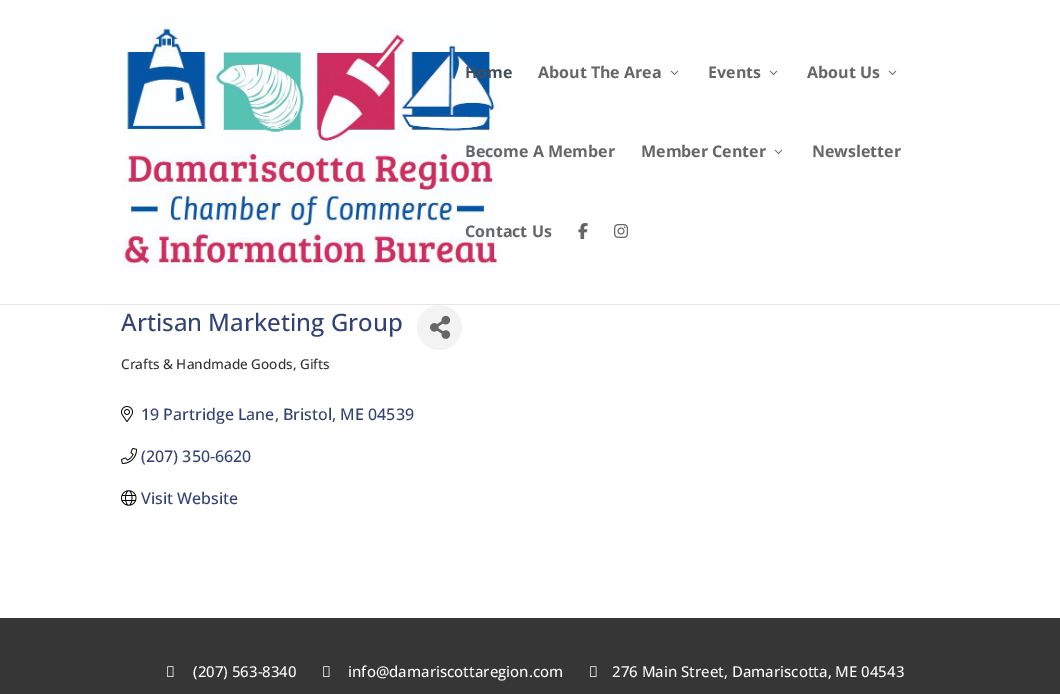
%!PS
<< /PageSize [1060 694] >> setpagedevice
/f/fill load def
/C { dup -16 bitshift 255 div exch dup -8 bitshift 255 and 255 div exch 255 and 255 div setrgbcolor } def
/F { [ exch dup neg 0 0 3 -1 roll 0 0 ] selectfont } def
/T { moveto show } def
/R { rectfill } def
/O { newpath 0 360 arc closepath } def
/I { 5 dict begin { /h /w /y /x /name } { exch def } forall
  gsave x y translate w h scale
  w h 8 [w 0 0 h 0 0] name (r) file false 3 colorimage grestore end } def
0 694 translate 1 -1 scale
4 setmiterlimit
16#FFFFFF C
0 0 1060 694 R
16#E6E6E6 C
0 304 1060 1 R
(1.rgb) 123 22 378 246 I
/OpenSans-Bold 16 F
16#434E59 C
(Home) 465 78 T
16#666666 C
(About The Area) 538 78 T
(2.rgb) 670 70 9 5 I
(Events) 708 78 T
(2.rgb) 769 70 9 5 I
(About Us) 807 78 T
(2.rgb) 888 70 9 5 I
(Become A Member) 465 157 T
(Member Center) 641 157 T
(2.rgb) 774 149 9 5 I
(Newsletter) 812 157 T
(Contact Us) 465 237 T
(3.rgb) 578 223 10 16 I
(4.rgb) 614 224 14 14 I
/OpenSans-Medium 24 F
16#324277 C
(Artisan Marketing Group) 121 331 T
16#F3F3F3 C
439.5 327.5 22.5 O f
(5.rgb) 430 315 21 24 I
/OpenSans-Medium 13.6 F
16#333333 C
(Crafts & Handmade Goods, Gifts) 121 369 T
(6.rgb) 121 406 12 16 I
/OpenSans-Medium 16 F
16#324277 C
(19 Partridge Lane, Bristol, ME 04539) 141 420 T
(7.rgb) 121 448 16 16 I
(\(207\) 350-6620) 141 462 T
(8.rgb) 121 490 16 16 I
(Visit Website) 141 504 T
16#363636 C
0 618 1060 76 R
(9.rgb) 167 666 7 11 I
/OpenSans-Medium 15 F
16#FFFFFF C
(\(207\) 563-8340) 193 677 T
(9.rgb) 323 666 7 11 I
(info@damariscottaregion.com) 348 677 T
(9.rgb) 590 666 7 11 I
(276 Main Street, Damariscotta, ME 04543) 612 677 T
showpage
